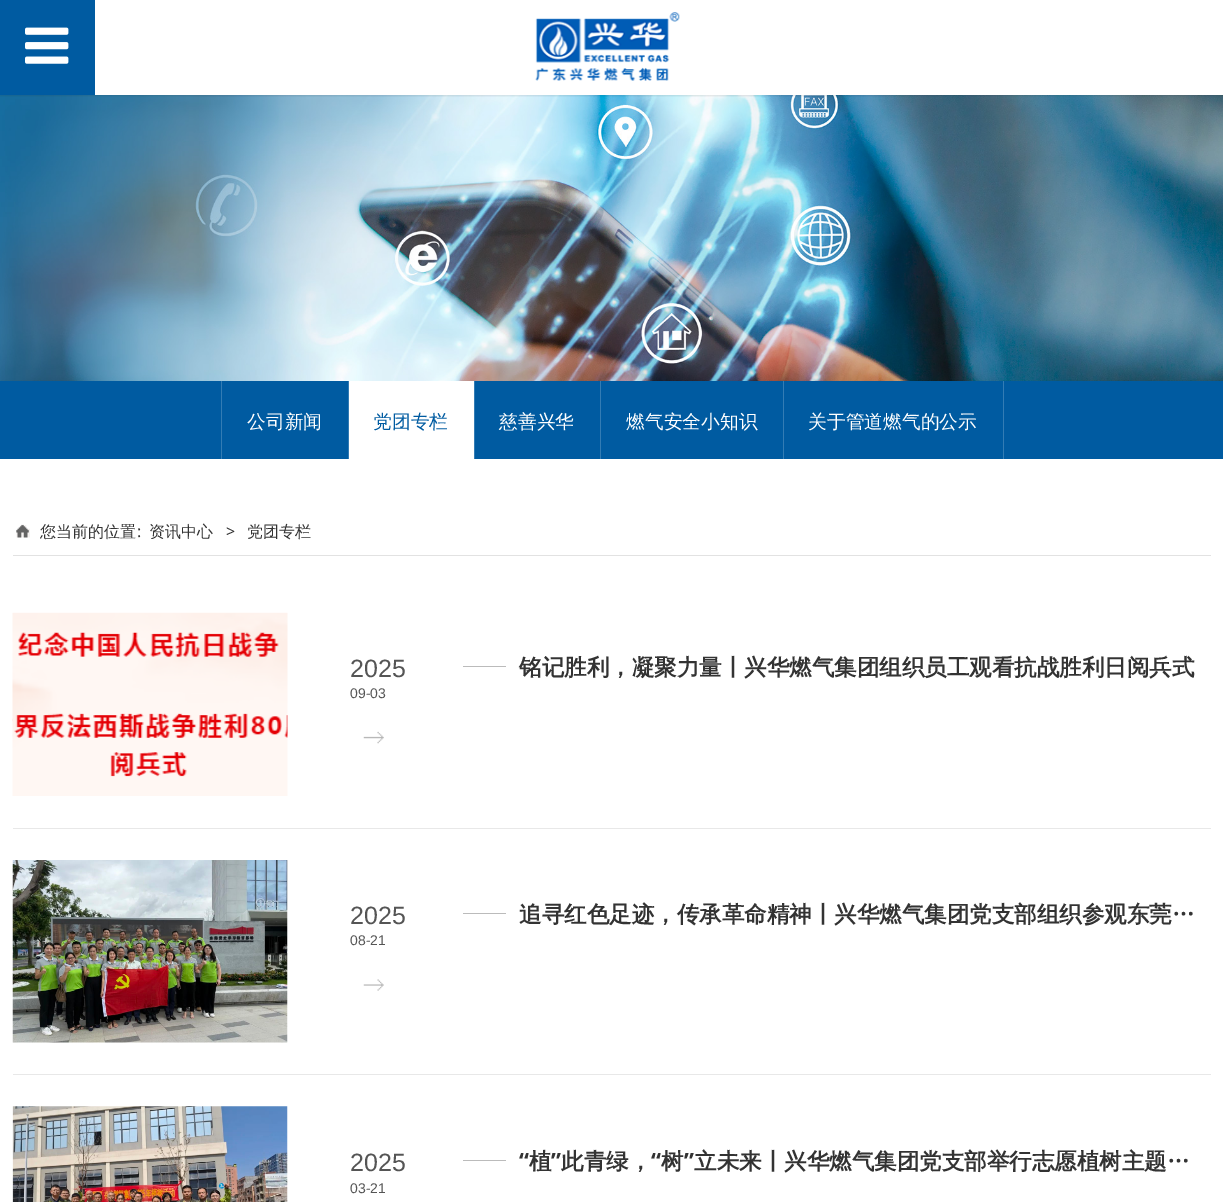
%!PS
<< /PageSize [1223 1202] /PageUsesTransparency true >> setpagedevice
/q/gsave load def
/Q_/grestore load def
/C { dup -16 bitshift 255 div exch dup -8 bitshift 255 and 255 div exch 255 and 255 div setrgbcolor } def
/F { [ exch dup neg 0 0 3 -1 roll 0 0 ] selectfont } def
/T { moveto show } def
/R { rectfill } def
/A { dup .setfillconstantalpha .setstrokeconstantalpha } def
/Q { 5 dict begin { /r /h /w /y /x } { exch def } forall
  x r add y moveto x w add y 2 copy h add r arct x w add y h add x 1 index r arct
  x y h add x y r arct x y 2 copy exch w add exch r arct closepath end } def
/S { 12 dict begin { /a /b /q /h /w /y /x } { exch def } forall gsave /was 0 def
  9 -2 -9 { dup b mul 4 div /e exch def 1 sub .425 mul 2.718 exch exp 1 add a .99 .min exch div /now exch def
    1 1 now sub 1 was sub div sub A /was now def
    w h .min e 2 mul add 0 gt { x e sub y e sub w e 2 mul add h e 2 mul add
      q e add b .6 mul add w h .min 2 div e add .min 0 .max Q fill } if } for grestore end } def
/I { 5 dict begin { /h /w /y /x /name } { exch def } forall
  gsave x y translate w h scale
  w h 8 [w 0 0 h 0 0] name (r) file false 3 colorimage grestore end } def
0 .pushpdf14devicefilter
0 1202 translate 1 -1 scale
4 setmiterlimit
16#FFFFFF C
0 0 1223 1202 R
(3.rgb) 0 95 1223 286 I
q
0 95 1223 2 rectclip
16#000000 C
0 1 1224 95 0 1 .1 S
Q_
16#005BA1 C
0 0 95 95 R
(1.rgb) 25 27 44 37 I
(2.rgb) 535 12 145 69 I
0 381 1223 78 R
16#337CB4 C
348 381 1 78 R
221 381 1 78 R
/WenQuanYiZenHei-Medium 18.75 F
16#FFFFFF C
(公司新闻) 247 428 T
16#337CB4 C
474 381 1 78 R
16#FFFFFF C
349 381 125 78 R
16#005BA1 C
(党团专栏) 373 428 T
16#337CB4 C
600 381 1 78 R
16#FFFFFF C
(慈善兴华) 499 428 T
16#337CB4 C
783 381 1 78 R
16#FFFFFF C
(燃气安全小知识) 626 428 T
16#337CB4 C
1003 381 1 78 R
16#FFFFFF C
(关于管道燃气的公示) 808 428 T
(4.rgb) 16 524 14 14 I
16#E2E2E2 C
13 555 1198 1 R
/WenQuanYiZenHei-Medium 16 F
16#333333 C
(您当前的位置) 40 537 T
/NotoSans-Regular 16 F
(:) 137 537 T
/WenQuanYiZenHei-Medium 16 F
(资讯中心) 149 537 T
/NotoSans-Regular 16 F
(>) 226 537 T
/WenQuanYiZenHei-Medium 16 F
(党团专栏) 247 537 T
16#E8E8E8 C
13 828 1198 1 R
(5.rgb) 12 612 276 184 I
/LiberationSans-Regular 25 F
16#555555 C
(2025) 350 677 T
/LiberationSans-Regular 14 F
(09-03) 350 698 T
(6.rgb) 363 731 21 13 I
16#BBBBBB C
463 666 43 1 R
/WenQuanYiZenHei-Bold 22.5 F
16#333333 C
(铭记胜利，凝聚力量丨兴华燃气集团组织员工观看抗战胜利日阅兵式) 519 675 T
16#E8E8E8 C
13 1074 1198 1 R
(7.rgb) 12 860 276 183 I
/LiberationSans-Regular 25 F
16#555555 C
(2025) 350 924 T
/LiberationSans-Regular 14 F
(08-21) 350 945 T
(8.rgb) 363 979 21 12 I
16#BBBBBB C
463 913 43 1 R
/WenQuanYiZenHei-Bold 22.5 F
16#333333 C
(追寻红色足迹，传承革命精神丨兴华燃气集团党支部组织参观东莞…) 519 922 T
(9.rgb) 12 1106 276 96 I
/LiberationSans-Regular 25 F
16#555555 C
(2025) 350 1171 T
/LiberationSans-Regular 14 F
(03-21) 350 1193 T
16#BBBBBB C
463 1160 43 1 R
/NotoSans-Bold 22.5 F
16#333333 C
(“) 519 1169 T
/WenQuanYiZenHei-Bold 22.5 F
(植) 529 1169 T
/NotoSans-Bold 22.5 F
(”) 551 1169 T
/WenQuanYiZenHei-Bold 22.5 F
(此青绿，) 561 1169 T
/NotoSans-Bold 22.5 F
(“) 651 1169 T
/WenQuanYiZenHei-Bold 22.5 F
(树) 661 1169 T
/NotoSans-Bold 22.5 F
(”) 684 1169 T
/WenQuanYiZenHei-Bold 22.5 F
(立未来丨兴华燃气集团党支部举行志愿植树主题…) 694 1169 T
.poppdf14devicefilter showpage
